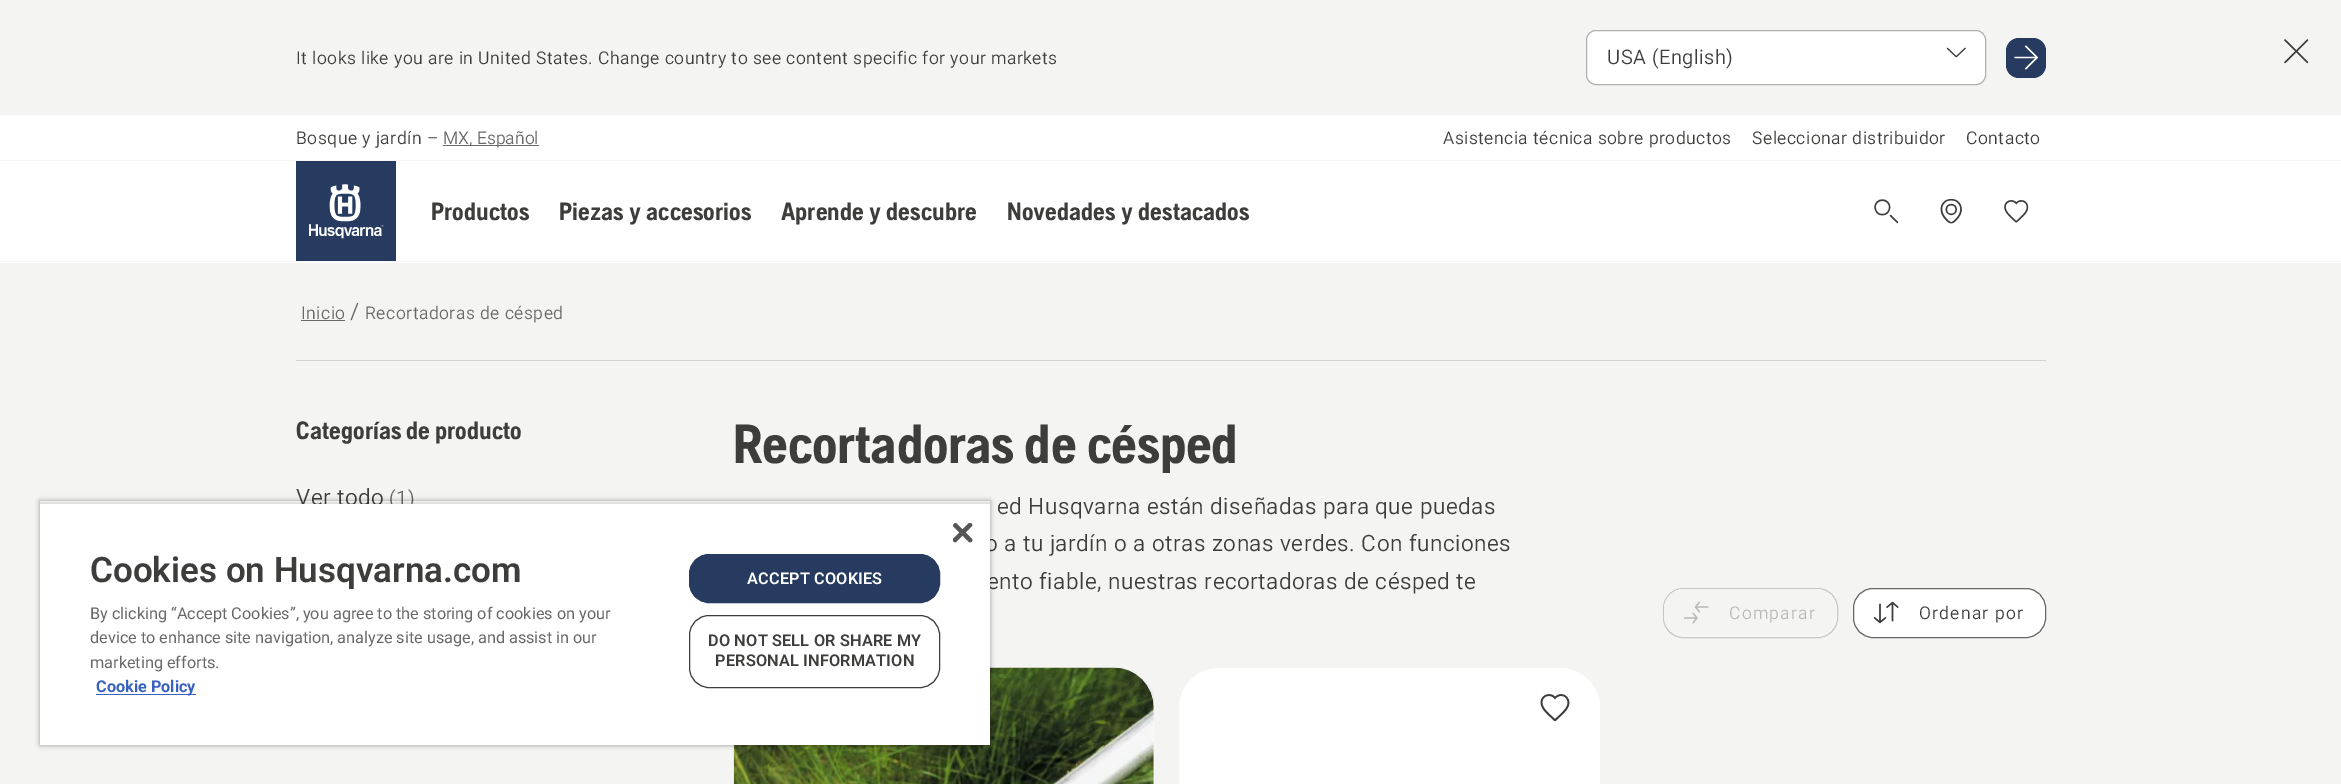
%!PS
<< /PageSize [2341 784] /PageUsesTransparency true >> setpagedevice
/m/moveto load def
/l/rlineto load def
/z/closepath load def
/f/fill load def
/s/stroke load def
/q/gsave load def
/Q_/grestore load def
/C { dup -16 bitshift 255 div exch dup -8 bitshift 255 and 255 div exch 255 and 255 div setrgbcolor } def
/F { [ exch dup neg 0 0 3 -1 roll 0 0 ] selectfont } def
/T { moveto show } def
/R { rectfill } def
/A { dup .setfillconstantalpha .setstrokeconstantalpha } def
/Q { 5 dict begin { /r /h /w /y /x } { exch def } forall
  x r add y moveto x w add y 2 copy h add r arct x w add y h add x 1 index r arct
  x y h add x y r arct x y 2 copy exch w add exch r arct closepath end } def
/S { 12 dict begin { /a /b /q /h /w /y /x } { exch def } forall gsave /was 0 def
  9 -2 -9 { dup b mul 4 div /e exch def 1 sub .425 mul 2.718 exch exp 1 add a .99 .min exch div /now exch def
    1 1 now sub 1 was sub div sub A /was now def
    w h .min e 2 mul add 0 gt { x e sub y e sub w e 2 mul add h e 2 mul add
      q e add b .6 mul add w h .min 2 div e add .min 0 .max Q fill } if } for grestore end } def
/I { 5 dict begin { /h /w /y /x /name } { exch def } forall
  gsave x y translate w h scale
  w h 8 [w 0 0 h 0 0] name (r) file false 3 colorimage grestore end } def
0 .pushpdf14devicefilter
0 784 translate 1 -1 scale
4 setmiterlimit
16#FFFFFF C
0 0 2341 784 R
16#F4F4F3 C
0 0 2341 115 R
/Roboto-Light 17.5 F
16#3D3D3C C
296 64 m .5 0 (It looks like you are in United States. Change country to see content specific for your markets) ashow
16#FFFFFF C
1586.5 30.5 399 54 9.5 Q q f Q_
16#B0B0AF C
s
/Roboto-Light 20 F
16#3D3D3C C
1607 64 m .5 0 (USA \(English\)) ashow
(1.rgb) 1946 47 20 11 I
16#273A60 C
2006 38 40 40 13 Q f
(2.rgb) 2014 45 25 25 I
(3.rgb) 2284 39 25 25 I
16#F5F5F5 C
0 160 2341 1 R
/Roboto-Light 17.5 F
16#3D3D3C C
296 144 m .5 0 (Bosque y jardín –) ashow
16#686867 C
443 145 96 1 R
(MX, Español) 443 144 T
16#3D3D3C C
1443 144 m .5 0 (Asistencia técnica sobre productos) ashow
1752 144 m .5 0 (Seleccionar distribuidor) ashow
1966 144 m .5 0 (Contacto) ashow
16#273A60 C
296 161 100 100 R
(4.rgb) 309 184 75 55 I
/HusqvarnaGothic-Bold 25 F
16#3D3D3C C
(Productos) 431 220 T
(Piezas y accesorios) 559 220 T
(Aprende y descubre) 781 220 T
(Novedades y destacados) 1007 220 T
(5.rgb) 1874 199 25 25 I
(6.rgb) 1940 199 22 25 I
(7.rgb) 2004 200 25 23 I
16#F5F5F5 C
0 261 2341 1 R
16#F4F4F3 C
0 263 2341 521 R
16#D2D2D1 C
296 360 1750 1 R
/Roboto-Light 17.5 F
16#686867 C
301 319 m .5 0 (Inicio) ashow
301 320 44 1 R
/Roboto-Light 22.5 F
350 319 m .5 0 (/) ashow
/Roboto-Light 17.5 F
365 319 m .5 0 (Recortadoras de césped) ashow
/HusqvarnaGothic-Bold 25 F
16#3D3D3C C
(Categorías de producto) 296 439 T
/Roboto-Light 22.5 F
296 505 m .5 0 (Ver todo) ashow
/Roboto-Light 20 F
16#686867 C
389 505 m .5 0 (\(1\)) ashow
/HusqvarnaGothic-Bold 55 F
16#3D3D3C C
733 463 m -.5 0 (Recortadoras de césped) ashow
/Roboto-Light 22.5 F
997 514 m .5 0 (ed Husqvarna están diseñadas para que puedas) ashow
985 551 m .5 0 (o a tu jardín o a otras zonas verdes. Con funciones) ashow
987 589 m .5 0 (ento fiable, nuestras recortadoras de césped te) ashow
16#F8F8F7 C
1663.5 588.5 174 49 19.5 Q q f Q_
16#C7C7C6 C
s
16#F4F4F3 C
1664 589 172 47 20 Q f
(8.rgb) 1684 601 25 23 I
/Roboto-Light 17.5 F
16#B9B9B8 C
1729 619 m 1.25 0 (Comparar) ashow
16#FFFFFF C
1853.5 588.5 192 49 19.5 Q q f Q_
16#686867 C
s
(9.rgb) 1874 601 25 23 I
16#3D3D3C C
1919 619 m 1.25 0 (Ordenar por) ashow
16#FFFFFF C
734 668 420 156 40 Q f
(10.rgb) 733 667 421 117 I
1179 668 421 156 40 Q f
(11.rgb) 1540 694 30 27 I
q
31 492 m 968 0 l 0 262 l -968 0 l z 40 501 m 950 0 l 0 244 l -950 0 l z eoclip newpath
16#000000 C
40 501 950 244 0 2.5 .35 S
Q_
q
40 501 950 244 rectclip
16#000000 C
40 504 950 241 0 2.5 .2 S
Q_
40 504 950 241 R
(12.rgb) 953 523 20 20 I
/Roboto-SemiBold 35 F
16#3D3D3C C
(Cookies on Husqvarna.com) 90 582 T
/Roboto-Regular 16.25 F
16#686867 C
(By clicking “Accept Cookies”, you agree to the storing of cookies on your) 90 619 T
(device to enhance site navigation, analyze site usage, and assist in our) 90 643 T
(marketing efforts.) 90 668 T
16#3860BE C
96 694 100 1 R
/Roboto-Bold 16.25 F
(Cookie Policy) 96 692 T
16#273A60 C
689.5 554.5 250 48 19.5 Q q f Q_
s
/Roboto-SemiBold 16.25 F
16#FFFFFF C
747 584 m .2 0 (ACCEPT COOKIES) ashow
16#3D3D3C C
689.5 615.5 250 72 19.5 Q s
708 646 m .2 0 (DO NOT SELL OR SHARE MY) ashow
715 666 m .2 0 (PERSONAL INFORMATION) ashow
.poppdf14devicefilter showpage
